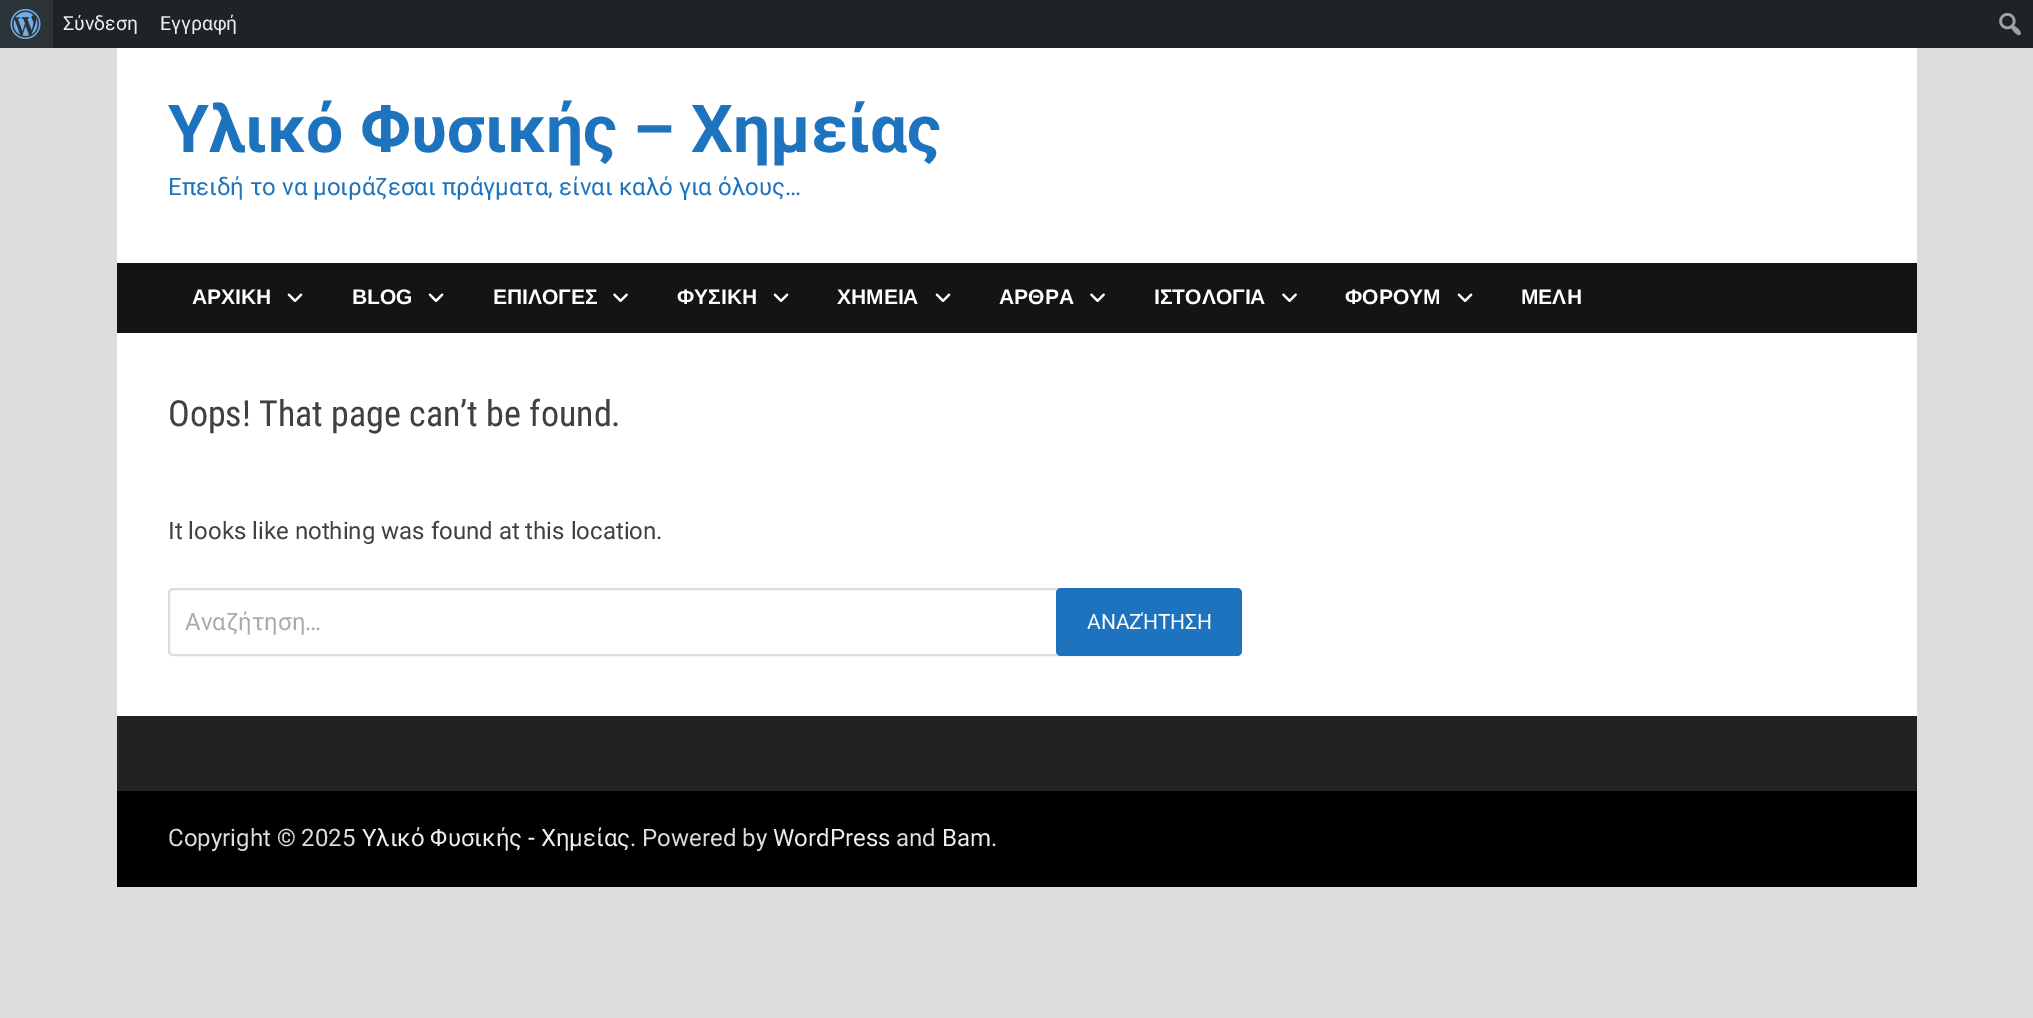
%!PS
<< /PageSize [2033 1018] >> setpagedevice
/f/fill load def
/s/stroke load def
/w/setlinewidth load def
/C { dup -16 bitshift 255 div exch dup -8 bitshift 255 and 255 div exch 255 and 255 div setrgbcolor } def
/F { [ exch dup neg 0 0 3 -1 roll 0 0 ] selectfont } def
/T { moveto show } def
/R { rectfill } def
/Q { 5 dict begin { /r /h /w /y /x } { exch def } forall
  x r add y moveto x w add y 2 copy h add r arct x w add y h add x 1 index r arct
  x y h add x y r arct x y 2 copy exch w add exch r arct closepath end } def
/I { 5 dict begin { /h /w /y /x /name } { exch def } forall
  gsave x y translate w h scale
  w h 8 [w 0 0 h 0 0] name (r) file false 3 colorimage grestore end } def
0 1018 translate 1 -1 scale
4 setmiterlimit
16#DDDDDD C
0 0 2033 1018 R
16#1D2327 C
53 0 1980 48 R
16#2C3338 C
0 0 53 48 R
(1.rgb) 10 9 31 30 I
/Roboto-Regular 19.5 F
16#EEEEEE C
(Σύνδεση) 63 30 T
(Εγγραφή) 160 30 T
(2.rgb) 1999 12 22 24 I
16#FFFFFF C
117 48 1800 668 R
/Roboto-Bold 66 F
16#1E73BE C
(Υλικό Φυσικής – Χημείας) 168 152 T
/Roboto-Regular 24 F
(Επειδή το να μοιράζεσαι πράγματα, είναι καλό για όλους…) 168 195 T
16#141414 C
117 263 1800 70 R
/LiberationSans-Bold 21 F
16#FFFFFF C
(ΑΡΧΙΚΗ) 192 304 T
(3.rgb) 287 293 16 9 I
(BLOG) 352 304 T
(3.rgb) 428 293 16 9 I
(ΕΠΙΛΟΓΕΣ) 493 304 T
(4.rgb) 613 293 15 9 I
(ΦΥΣΙΚΗ) 677 304 T
(3.rgb) 773 293 16 9 I
(ΧΗΜΕΙΑ) 837 304 T
(3.rgb) 935 293 16 9 I
(ΑΡΘΡΑ) 999 304 T
(4.rgb) 1090 293 15 9 I
(ΙΣΤΟΛΟΓΙΑ) 1154 304 T
(4.rgb) 1282 293 15 9 I
(ΦΟΡΟΥΜ) 1345 304 T
(3.rgb) 1457 293 16 9 I
(ΜΕΛΗ) 1521 304 T
/RobotoCondensed-Regular 36 F
16#404040 C
(Oops! That page can’t be found.) 168 426 T
/Roboto-Regular 24 F
(It looks like nothing was found at this location.) 168 539 T
16#DDDDDD C
2 w
169 589 1072 66 4 Q s
16#AAAAAA C
(Αναζήτηση…) 185 630 T
16#1E73BE C
1056 588 186 68 5 Q f
/Roboto-Regular 21 F
16#FFFFFF C
(ΑΝΑΖΉΤΗΣΗ) 1087 629 T
16#222222 C
117 716 1800 75 R
16#000000 C
117 791 1800 96 R
/Roboto-Regular 24 F
16#DDDDDD C
(Copyright © 2025) 168 846 T
16#EEEEEE C
(Υλικό Φυσικής - Χημείας) 362 846 T
16#DDDDDD C
(. Powered by) 630 846 T
16#EEEEEE C
(WordPress) 773 846 T
16#DDDDDD C
(and) 896 846 T
16#EEEEEE C
(Bam) 942 846 T
16#DDDDDD C
(.) 991 846 T
showpage
